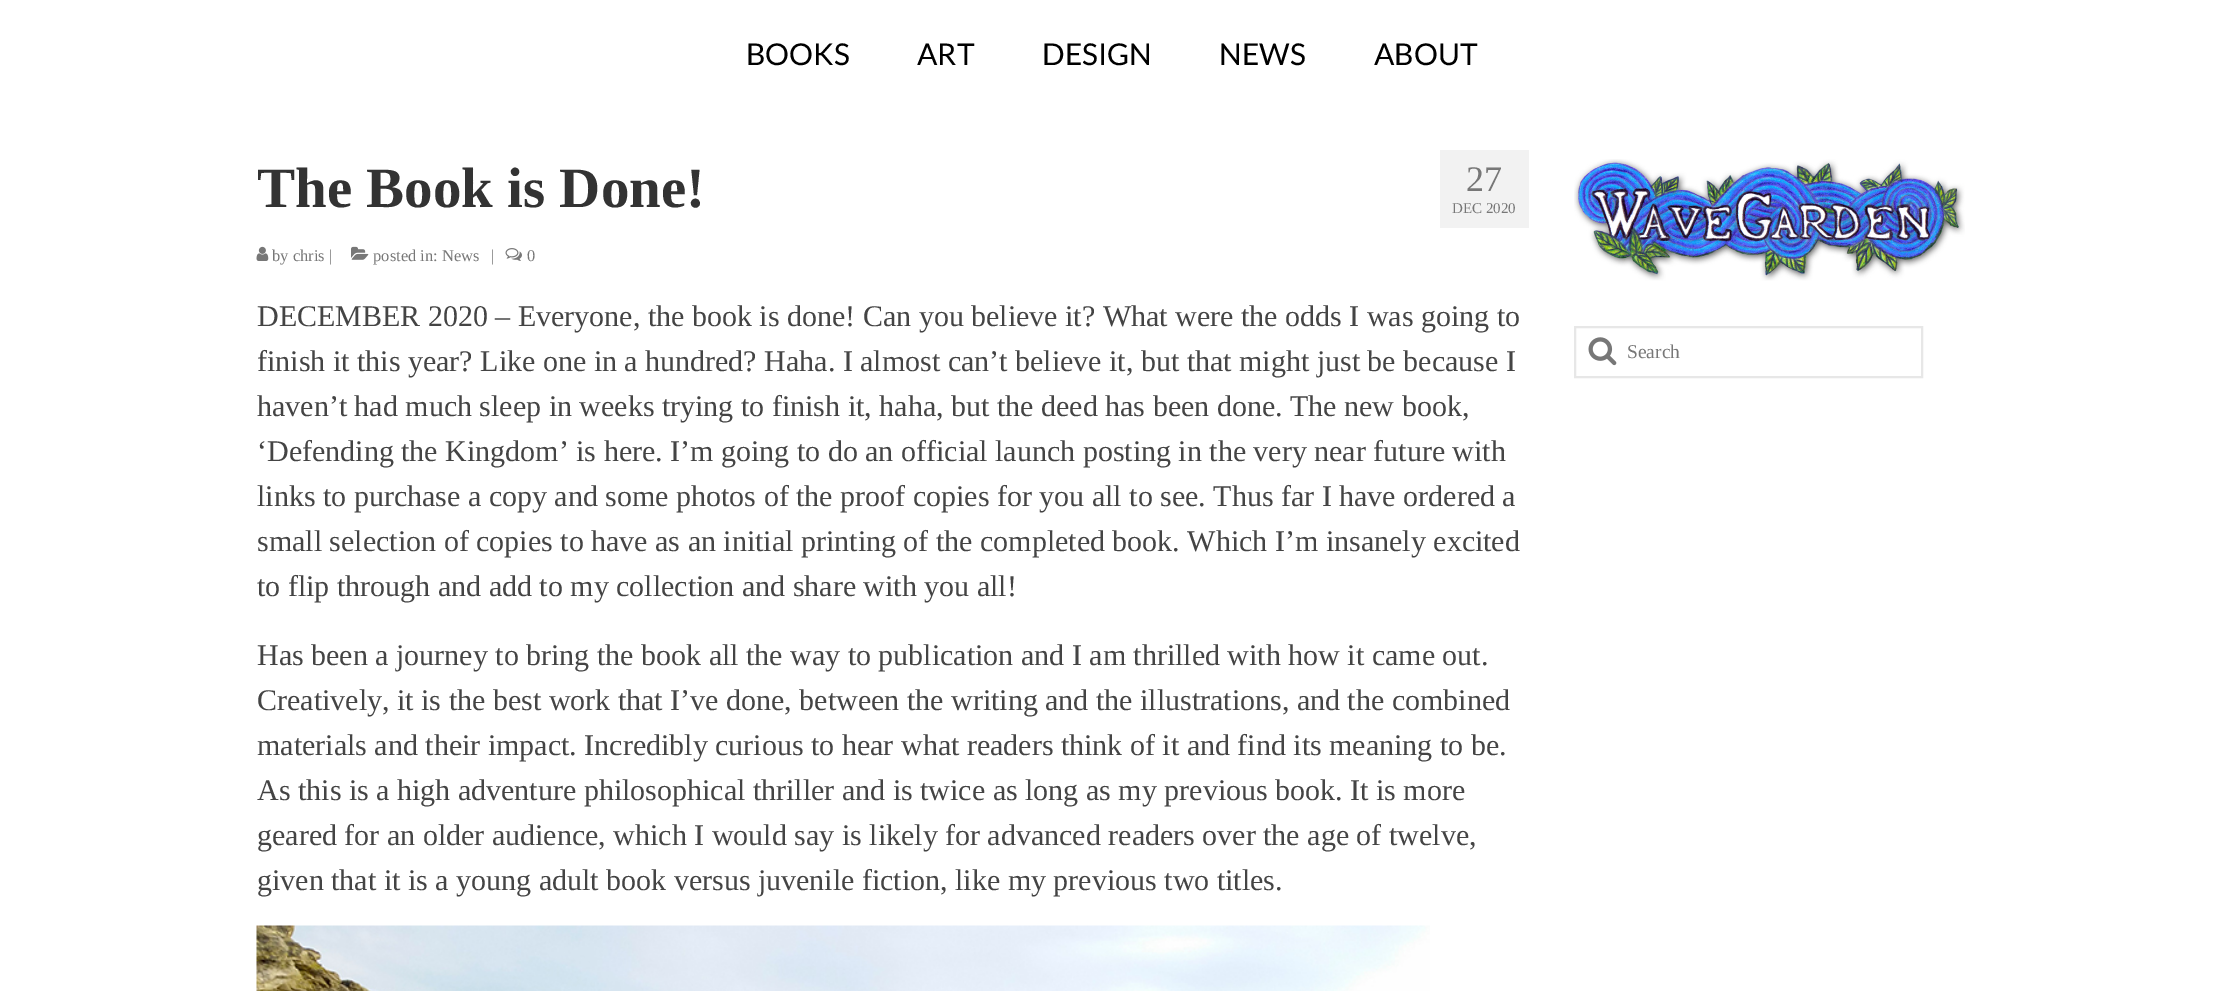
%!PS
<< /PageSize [2223 991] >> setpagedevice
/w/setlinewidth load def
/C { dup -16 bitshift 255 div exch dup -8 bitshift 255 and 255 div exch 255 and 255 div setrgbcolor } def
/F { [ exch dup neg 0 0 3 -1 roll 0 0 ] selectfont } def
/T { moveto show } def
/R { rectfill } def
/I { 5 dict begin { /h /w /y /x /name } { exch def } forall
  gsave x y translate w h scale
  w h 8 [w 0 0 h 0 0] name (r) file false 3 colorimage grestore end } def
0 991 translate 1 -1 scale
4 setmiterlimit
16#FFFFFF C
0 0 2223 991 R
/Lato-Regular 30 F
16#000000 C
(BOOKS) 746 65 T
(ART) 917 65 T
(DESIGN) 1042 65 T
(NEWS) 1219 65 T
(ABOUT) 1374 65 T
/LiberationSerif-Bold 57 F
16#333333 C
(The Book is Done!) 257 207 T
(1.rgb) 256 246 13 15 I
/LiberationSerif-Regular 16.5 F
16#777777 C
(by chris |) 272 261 T
(2.rgb) 351 246 18 14 I
(posted in: News) 373 261 T
(|) 491 261 T
(3.rgb) 505 248 17 13 I
(0) 527 261 T
16#F2F2F2 C
1440 150 89 78 R
/LiberationSerif-Regular 36 F
16#777777 C
(27) 1466 191 T
/LiberationSerif-Regular 15 F
(DEC 2020) 1452 213 T
/LiberationSerif-Regular 30 F
16#444444 C
(DECEMBER 2020 – Everyone, the book is done! Can you believe it? What were the odds I was going to) 257 326 T
(finish it this year? Like one in a hundred? Haha. I almost can’t believe it, but that might just be because I) 257 371 T
(haven’t had much sleep in weeks trying to finish it, haha, but the deed has been done. The new book,) 257 416 T
(‘Defending the Kingdom’ is here. I’m going to do an official launch posting in the very near future with) 257 461 T
(links to purchase a copy and some photos of the proof copies for you all to see. Thus far I have ordered a) 257 506 T
(small selection of copies to have as an initial printing of the completed book. Which I’m insanely excited) 257 551 T
(to flip through and add to my collection and share with you all!) 257 596 T
(Has been a journey to bring the book all the way to publication and I am thrilled with how it came out.) 257 665 T
(Creatively, it is the best work that I’ve done, between the writing and the illustrations, and the combined) 257 710 T
(materials and their impact. Incredibly curious to hear what readers think of it and find its meaning to be.) 257 755 T
(As this is a high adventure philosophical thriller and is twice as long as my previous book. It is more) 257 800 T
(geared for an older audience, which I would say is likely for advanced readers over the age of twelve,) 257 845 T
(given that it is a young adult book versus juvenile fiction, like my previous two titles.) 257 890 T
(4.rgb) 256 925 1174 66 I
(5.rgb) 1574 159 391 122 I
16#E7E7E7 C
2 w
1575 327 347 50 rectstroke
(6.rgb) 1588 337 29 29 I
/LiberationSerif-Regular 19.5 F
16#777777 C
(Search) 1627 358 T
showpage
